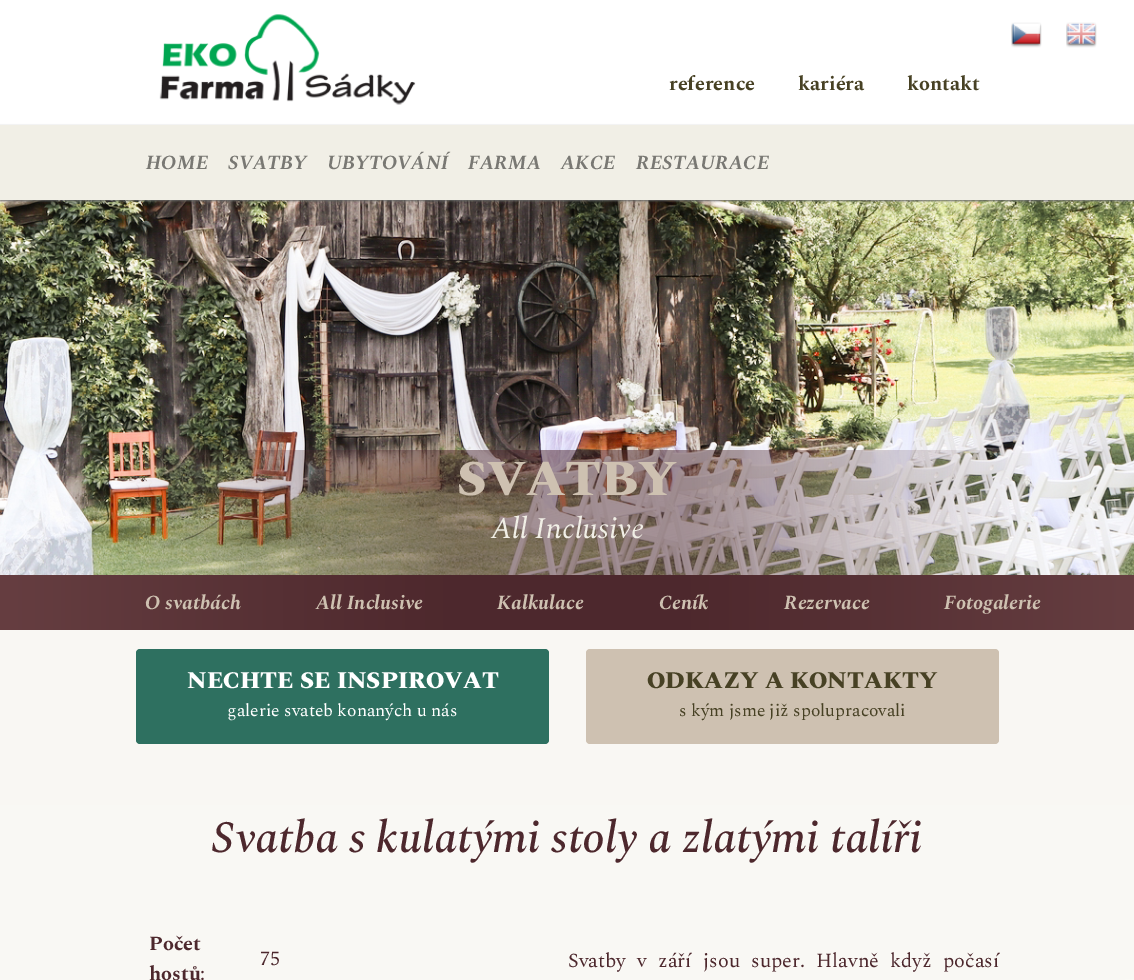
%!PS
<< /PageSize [1134 980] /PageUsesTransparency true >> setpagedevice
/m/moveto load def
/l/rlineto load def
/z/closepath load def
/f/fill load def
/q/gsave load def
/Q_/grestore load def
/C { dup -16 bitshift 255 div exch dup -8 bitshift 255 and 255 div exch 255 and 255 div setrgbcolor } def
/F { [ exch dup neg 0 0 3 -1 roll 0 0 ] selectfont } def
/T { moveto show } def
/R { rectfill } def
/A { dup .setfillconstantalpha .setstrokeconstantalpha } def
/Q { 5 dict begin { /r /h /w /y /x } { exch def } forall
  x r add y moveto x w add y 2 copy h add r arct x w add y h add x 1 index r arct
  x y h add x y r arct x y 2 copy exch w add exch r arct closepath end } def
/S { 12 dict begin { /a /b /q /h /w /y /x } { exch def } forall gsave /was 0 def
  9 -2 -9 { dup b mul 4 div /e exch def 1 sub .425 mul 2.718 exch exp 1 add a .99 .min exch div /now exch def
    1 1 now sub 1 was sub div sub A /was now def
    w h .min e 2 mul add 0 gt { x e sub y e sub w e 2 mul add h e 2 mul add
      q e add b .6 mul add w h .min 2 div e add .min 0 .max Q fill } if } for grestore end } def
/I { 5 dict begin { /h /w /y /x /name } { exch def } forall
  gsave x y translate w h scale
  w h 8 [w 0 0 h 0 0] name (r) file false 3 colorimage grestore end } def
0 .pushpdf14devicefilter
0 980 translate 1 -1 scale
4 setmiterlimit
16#FFFFFF C
0 0 1134 980 R
q 0 630 m 1134 0 l 0 350 l -1134 0 l z clip newpath
<< /ShadingType 2 /ColorSpace /DeviceRGB /Coords [567 0 568 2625] /Extend [true true] /Function << /FunctionType 2 /Domain [0 1] /C0 [.969 .961 .937] /C1 [1 1 1] /N 1 >> >> shfill Q_
(1.rgb) 1011 22 31 26 I
(2.rgb) 1066 22 31 26 I
(3.rgb) 159 14 257 91 I
/Spectral-Bold 20 F
16#474124 C
(reference) 669 90 T
(kariéra) 798 90 T
(kontakt) 907 90 T
(4.rgb) 0 200 1134 375 I
16#666666 C
0 126 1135 75 0 1 1 S
16#F1EFE6 C
0 125 1134 75 R
/Spectral-BoldItalic 20 F
16#797873 C
(HOME) 146 169 T
(SVATBY) 228 169 T
(UBYTOVÁNÍ) 327 169 T
(FARMA) 468 169 T
(AKCE) 561 169 T
(RESTAURACE) 636 169 T
/Spectral-ExtraBold 50 F
16#CEC1B1 C
(SVATBY) 457 495 T
/Spectral-Italic 30 F
16#F1EFE6 C
(All Inclusive) 491 538 T
q 0 575 m 1134 0 l 0 55 l -1134 0 l z clip newpath
<< /ShadingType 2 /ColorSpace /DeviceRGB /Coords [0 603 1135 603] /Extend [true true] /Function << /FunctionType 3 /Domain [0 1] /Functions [<< /FunctionType 2 /Domain [0 1] /C0 [.4 .243 .255] /C1 [.302 .157 .176] /N 1 >> << /FunctionType 2 /Domain [0 1] /C0 [.302 .157 .176] /C1 [.302 .157 .176] /N 1 >> << /FunctionType 2 /Domain [0 1] /C0 [.302 .157 .176] /C1 [.4 .243 .255] /N 1 >>] /Bounds [.4 .6] /Encode [0 1 0 1 0 1] >> >> shfill Q_
/Spectral-BoldItalic 20 F
16#CEC1B1 C
(O svatbách) 145 609 T
(All Inclusive) 316 609 T
(Kalkulace) 497 609 T
(Ceník) 659 609 T
(Rezervace) 784 609 T
(Fotogalerie) 944 609 T
16#2E7060 C
136 649 413 95 4 Q f
/Spectral-ExtraBold 23.75 F
16#FFFFFF C
(NECHTE SE INSPIROVAT) 187 688 T
/Spectral-Regular 17.5 F
(galerie svateb konaných u nás) 227 716 T
16#CEC1B1 C
586 649 413 95 4 Q f
/Spectral-ExtraBold 23.75 F
16#474124 C
(ODKAZY A KONTAKTY) 647 688 T
/Spectral-Regular 17.5 F
(s kým jsme již spolupracovali) 679 716 T
/Spectral-MediumItalic 45 F
16#4D282D C
(Svatba s kulatými stoly a zlatými talíři) 212 852 T
/Spectral-Bold 20 F
(Počet) 149 950 T
(hostů) 149 980 T
/Spectral-Regular 20 F
(:) 200 980 T
(75) 260 965 T
568 967 m 6.25 0 32 (Svatby v září jsou super. Hlavně když počasí) widthshow
.poppdf14devicefilter showpage
